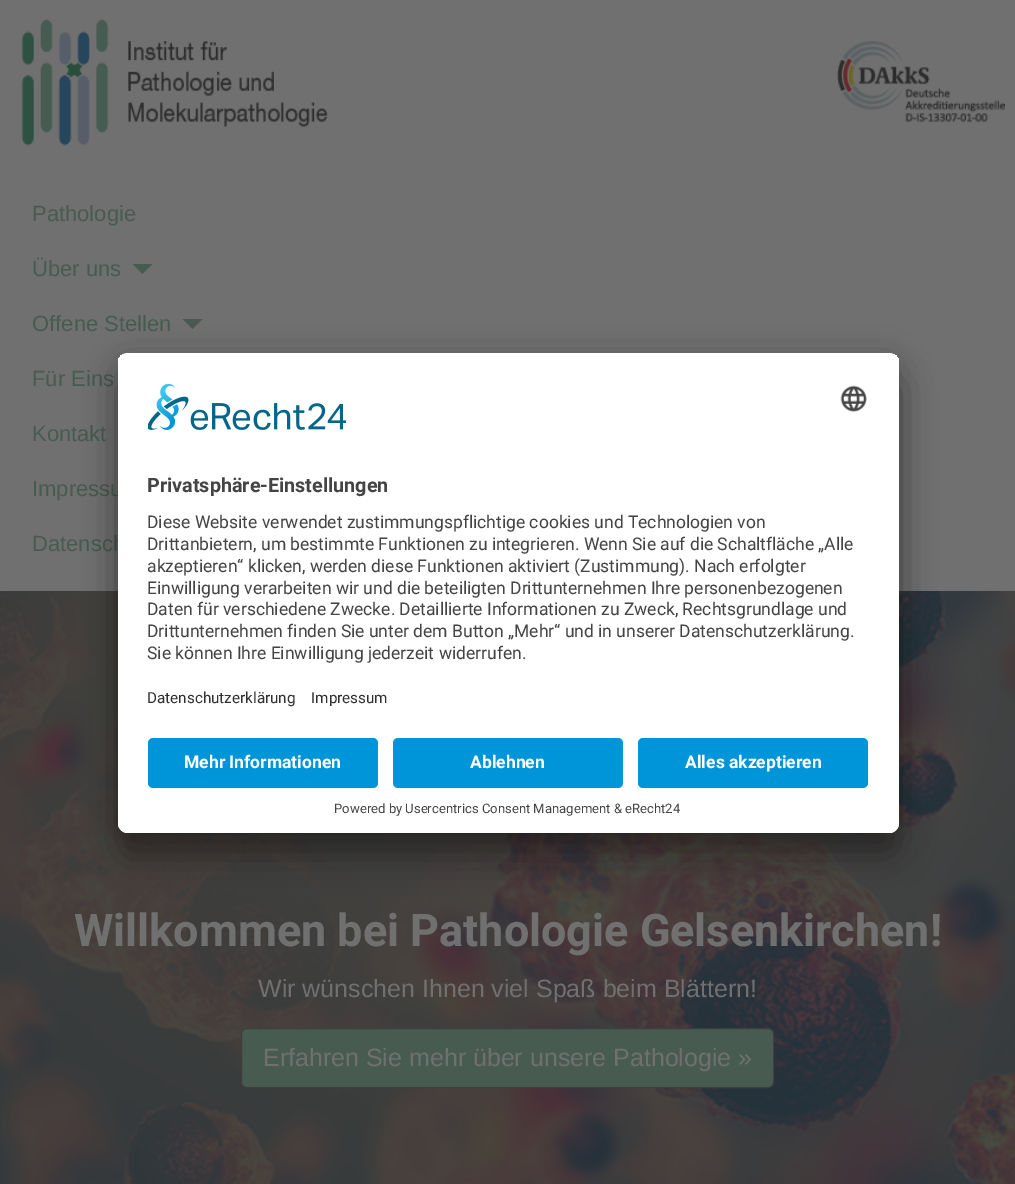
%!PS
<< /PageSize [1015 1184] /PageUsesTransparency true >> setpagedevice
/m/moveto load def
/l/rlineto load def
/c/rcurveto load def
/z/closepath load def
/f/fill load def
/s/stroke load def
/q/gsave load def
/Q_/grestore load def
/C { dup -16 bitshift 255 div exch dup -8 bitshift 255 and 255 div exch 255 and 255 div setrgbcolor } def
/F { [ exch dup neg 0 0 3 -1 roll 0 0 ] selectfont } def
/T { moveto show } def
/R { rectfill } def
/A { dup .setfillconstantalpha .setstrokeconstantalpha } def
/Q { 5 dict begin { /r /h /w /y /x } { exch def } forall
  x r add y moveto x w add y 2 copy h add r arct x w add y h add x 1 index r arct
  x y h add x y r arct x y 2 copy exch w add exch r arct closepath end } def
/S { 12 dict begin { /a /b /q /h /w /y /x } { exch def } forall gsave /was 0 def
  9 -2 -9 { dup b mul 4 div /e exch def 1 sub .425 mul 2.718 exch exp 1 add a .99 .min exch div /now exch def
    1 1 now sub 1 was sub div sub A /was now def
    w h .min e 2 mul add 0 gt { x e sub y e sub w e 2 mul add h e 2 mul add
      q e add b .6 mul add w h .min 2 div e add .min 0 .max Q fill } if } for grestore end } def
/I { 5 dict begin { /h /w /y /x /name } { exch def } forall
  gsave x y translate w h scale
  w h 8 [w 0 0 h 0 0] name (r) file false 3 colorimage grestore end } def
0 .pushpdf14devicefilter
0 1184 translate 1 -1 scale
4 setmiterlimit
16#707070 C
0 0 1015 1184 R
(1.rgb) 21 19 984 127 I
/LiberationSans-Regular 22 F
16#475B51 C
(Pathologie) 32 221 T
(Über uns) 32 276 T
132.5 264 m 20 0 l -10 10 l z f
(Offene Stellen) 32 331 T
182.5 319 m 20 0 l -10 10 l z f
(Für Eins) 32 386 T
q
33 418 73 32 rectclip
(Kontakt) 32 441 T
Q_
(Impressu) 32 496 T
(Datensch) 32 551 T
(4.rgb) 0 591 1015 593 I
16#000000 C
118 378 781 480 10 17.5 .3 S
118 359 781 480 10 16 .22 S
16#FFFFFF C
118 353 781 480 10 Q f
q
118 353 781 480 10 Q clip newpath
128 353 m 761 0 l 5.5 0 10 4.5 10 10 c 0 365 l -781 0 l 0 -365 l 0 -5.5 4.5 -10 10 -10 c z clip newpath
118 354 781 374 R
Q_
(2.rgb) 148 384 198 46 I
(3.rgb) 840 385 27 27 I
/Roboto-Bold 19.75 F
16#444444 C
(Privatsphäre-Einstellungen) 147 492 T
/Roboto-Regular 17.5 F
(Diese Website verwendet zustimmungspflichtige cookies und Technologien von) 147 528 T
(Drittanbietern, um bestimmte Funktionen zu integrieren. Wenn Sie auf die Schaltfläche „Alle) 147 550 T
(akzeptieren“ klicken, werden diese Funktionen aktiviert \(Zustimmung\). Nach erfolgter) 147 572 T
(Einwilligung verarbeiten wir und die beteiligten Drittunternehmen Ihre personenbezogenen) 147 594 T
(Daten für verschiedene Zwecke. Detaillierte Informationen zu Zweck, Rechtsgrundlage und) 147 615 T
(Drittunternehmen finden Sie unter dem Button „Mehr“ und in unserer Datenschutzerklärung.) 147 637 T
(Sie können Ihre Einwilligung jederzeit widerrufen.) 147 659 T
/Roboto-Regular 15.25 F
16#303030 C
(Datenschutzerklärung) 147 703 T
(Impressum) 311 703 T
16#FFFFFF C
118 728 m 781 0 l 0 95 l 0 5.5 -4.5 10 -10 10 c -761 0 l -5.5 0 -10 -4.5 -10 -10 c z f
16#0094D8 C
148 738 230 50 5 Q f
/Roboto-Bold 17.5 F
16#FFFFFF C
(Mehr Informationen) 184 768 T
16#0094D8 C
393 738 230 50 5 Q f
16#FFFFFF C
(Ablehnen) 470 768 T
16#0094D8 C
638 738 230 50 5 Q f
16#FFFFFF C
(Alles akzeptieren) 685 768 T
/Roboto-Regular 13.1 F
16#444444 C
(Powered by Usercentrics Consent Management & eRecht24) 334 813 T
/Roboto-Bold 45 F
16#707070 C
(Willkommen bei Pathologie Gelsenkirchen!) 74 946 T
/LiberationSans-Regular 25 F
(Wir wünschen Ihnen viel Spaß beim Blättern!) 258 997 T
16#475B51 C
241.5 1028.5 532 59 5.5 Q q f Q_
16#3E3E3E C
s
16#707070 C
(Erfahren Sie mehr über unsere Pathologie ») 263 1066 T
.poppdf14devicefilter showpage
